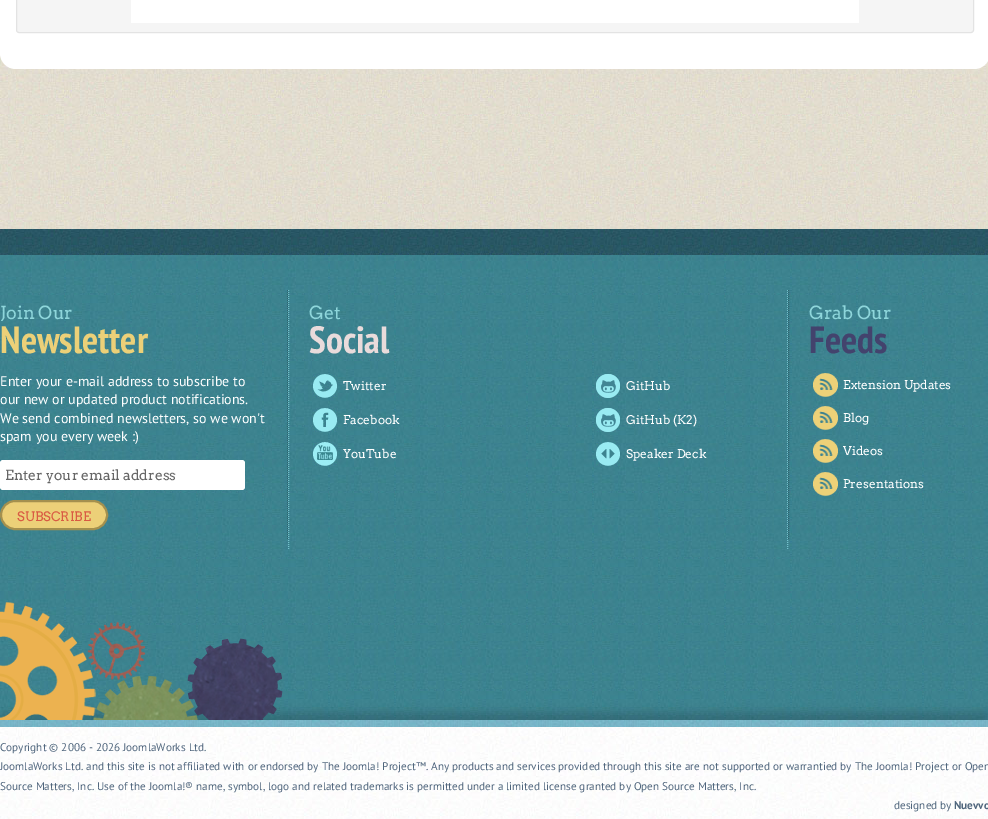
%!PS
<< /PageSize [988 819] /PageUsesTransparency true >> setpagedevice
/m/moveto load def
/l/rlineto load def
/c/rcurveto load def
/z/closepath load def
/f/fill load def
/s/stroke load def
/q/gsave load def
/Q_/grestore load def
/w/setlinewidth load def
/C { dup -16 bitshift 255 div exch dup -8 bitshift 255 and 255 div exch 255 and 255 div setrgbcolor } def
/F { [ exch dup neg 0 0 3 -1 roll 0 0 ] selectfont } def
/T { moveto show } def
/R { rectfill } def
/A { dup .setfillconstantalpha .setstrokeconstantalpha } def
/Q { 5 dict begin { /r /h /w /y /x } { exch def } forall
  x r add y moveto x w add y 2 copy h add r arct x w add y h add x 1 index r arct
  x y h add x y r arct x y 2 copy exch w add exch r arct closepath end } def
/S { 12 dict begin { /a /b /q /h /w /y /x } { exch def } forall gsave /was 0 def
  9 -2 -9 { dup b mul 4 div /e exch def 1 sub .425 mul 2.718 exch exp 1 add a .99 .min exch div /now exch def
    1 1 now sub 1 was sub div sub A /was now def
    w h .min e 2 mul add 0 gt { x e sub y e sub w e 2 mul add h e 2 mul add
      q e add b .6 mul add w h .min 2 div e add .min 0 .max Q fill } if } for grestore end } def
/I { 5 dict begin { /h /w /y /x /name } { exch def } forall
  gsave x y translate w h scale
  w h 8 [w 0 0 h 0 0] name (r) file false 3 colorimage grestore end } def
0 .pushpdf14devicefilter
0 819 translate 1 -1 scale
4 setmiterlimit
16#FFFFFF C
0 0 988 819 R
(1.rgb) 0 53 988 176 I
0 -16 m 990 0 l 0 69 l 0 9 -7 16 -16 16 c -958 0 l -9 0 -16 -7 -16 -16 c z f
16#F5F5F5 C
16.5 -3.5 957 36 2.5 Q q f Q_
16#E3E3E3 C
s
16#FFFFFF C
131 0 728 23 R
(2.rgb) 0 255 988 465 I
(3.rgb) 0 229 988 26 I
16#2D616B C
[1 1] 0 setdash
287.5 290 m 0 250 l s
/Arvo-Regular 18 F
16#8ED6DB C
(Join Our) 0 319 T
/PTSansNarrow-Bold 38 F
16#ECD078 C
(Newsletter) 0 353 T
/PTSans-Regular 14 F
16#FFFFFF C
(Enter your e-mail address to subscribe to) 0 386 T
(our new or updated product notifications.) 0 404 T
(We send combined newsletters, so we won't) 0 423 T
(spam you every week :\)) 0 441 T
0 460 245 30 3 Q f
/Arvo-Regular 14 F
16#666666 C
(Enter your email address) 5 480 T
16#ECD078 C
1 501 106 28 14 Q q f Q_
16#A4904E C
2 w
[] 0 setdash
s
/Arvo-Regular 13 F
16#D95B43 C
(SUBSCRIBE) 17 521 T
16#75C3CE C
1 w
[1 1] 0 setdash
787.5 290 m 0 260 l s
288.5 290 m 0 260 l s
/Arvo-Regular 18 F
16#8ED6DB C
(Get) 309 319 T
/PTSansNarrow-Bold 38 F
16#E9DBDB C
(Social) 309 353 T
(4.rgb) 313 374 24 24 I
/Arvo-Regular 12 F
16#FFFFFF C
(Twitter) 343 390 T
(5.rgb) 596 374 24 24 I
(GitHub) 626 390 T
(6.rgb) 313 408 24 24 I
(Facebook) 343 424 T
(5.rgb) 596 408 24 24 I
(GitHub \(K2\)) 626 424 T
(7.rgb) 313 442 24 24 I
(YouTube) 343 458 T
(8.rgb) 596 442 24 24 I
(Speaker Deck) 626 458 T
16#2D616B C
788.5 290 m 0 250 l s
/Arvo-Regular 18 F
16#8ED6DB C
(Grab Our) 809 319 T
/PTSansNarrow-Bold 38 F
16#43436D C
(Feeds) 809 353 T
(9.rgb) 813 373 25 24 I
/Arvo-Regular 12 F
16#FFFFFF C
(Extension Updates) 843 389 T
(9.rgb) 813 406 25 24 I
(Blog) 843 422 T
(9.rgb) 813 439 25 24 I
(Videos) 843 455 T
(9.rgb) 813 472 25 24 I
(Presentations) 843 488 T
16#000000 C
0 712 988 99 0 4 .15 S
(10.rgb) 0 602 283 118 I
(11.rgb) 0 727 988 92 I
(12.rgb) 0 720 988 7 I
/PTSans-Regular 11.2 F
16#50667D C
(Copyright © 2006 - 2026 JoomlaWorks Ltd.) 0 751 T
(JoomlaWorks Ltd. and this site is not affiliated with or endorsed by The Joomla! Project™. Any products and services provided through this site are not supported or warrantied by The Joomla! Project or Open) 0 770 T
(Source Matters, Inc. Use of the Joomla!® name, symbol, logo and related trademarks is permitted under a limited license granted by Open Source Matters, Inc.) 0 790 T
(designed by) 894 809 T
/PTSans-Bold 11.2 F
(Nuevvo) 954 809 T
.poppdf14devicefilter showpage
